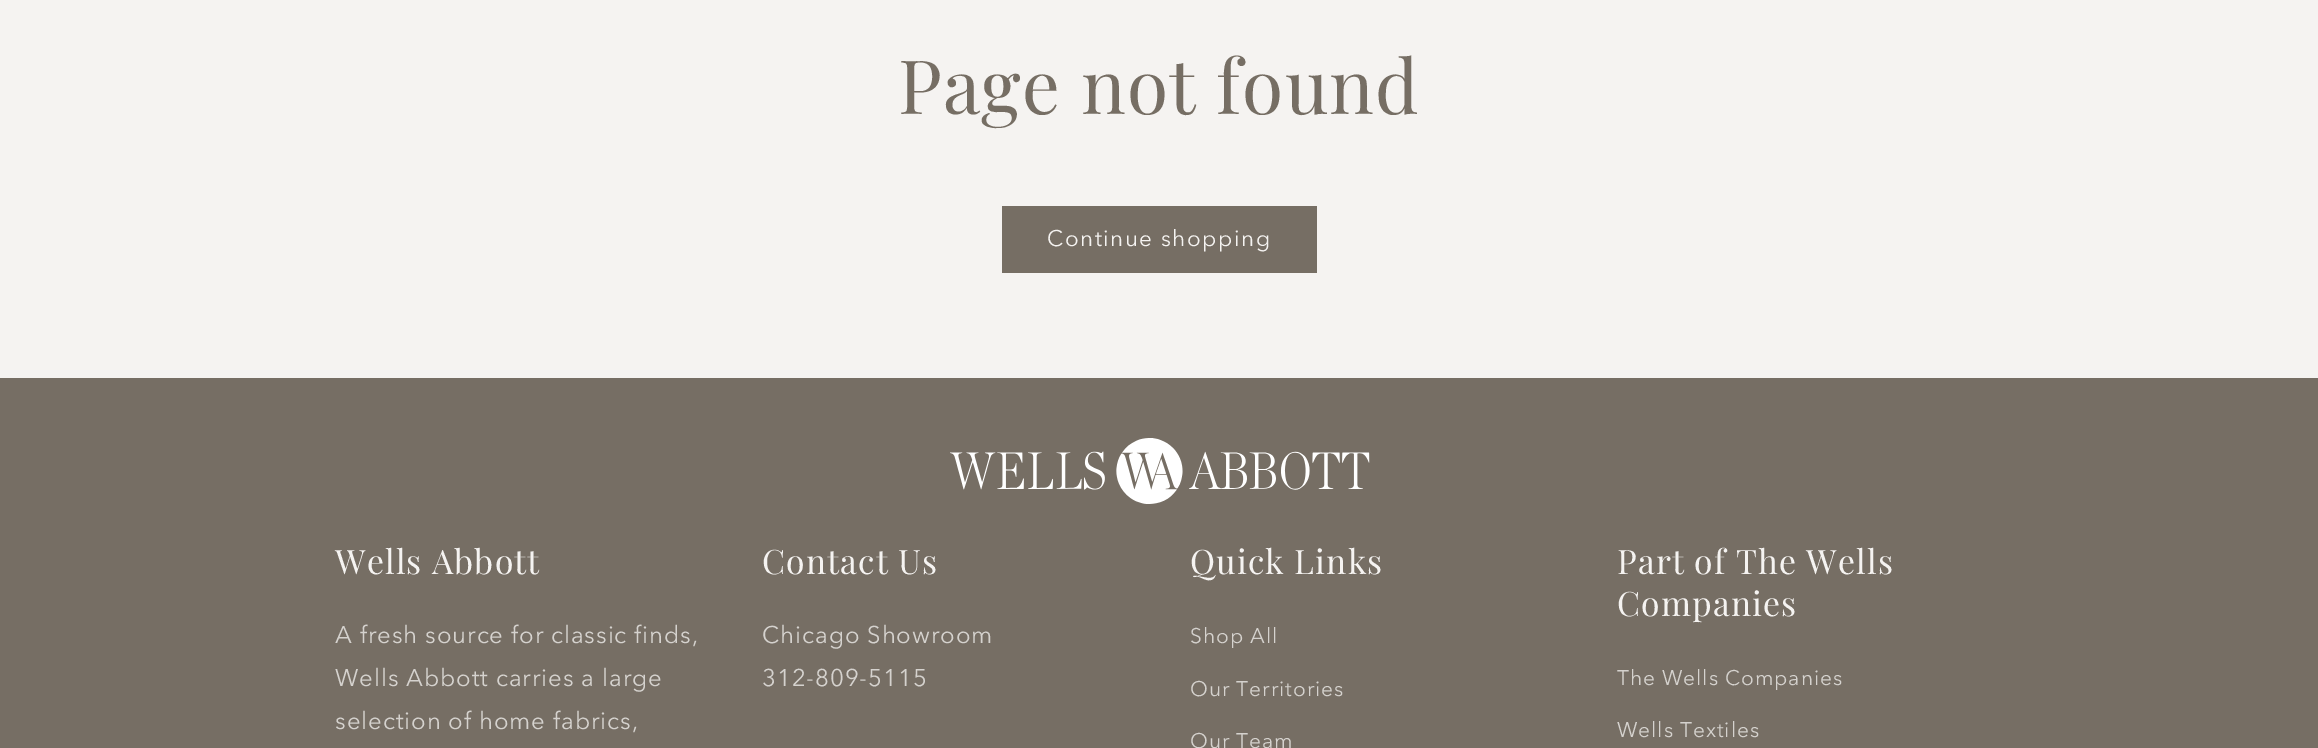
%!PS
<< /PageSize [2318 748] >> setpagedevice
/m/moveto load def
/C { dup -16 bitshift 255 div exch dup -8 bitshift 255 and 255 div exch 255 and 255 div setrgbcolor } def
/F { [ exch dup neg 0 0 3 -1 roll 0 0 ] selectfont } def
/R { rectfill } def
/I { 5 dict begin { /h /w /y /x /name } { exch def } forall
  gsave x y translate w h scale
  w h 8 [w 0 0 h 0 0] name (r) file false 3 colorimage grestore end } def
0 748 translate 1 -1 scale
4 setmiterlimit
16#F5F3F1 C
0 0 2318 748 R
/PlayfairDisplay-Regular 75 F
16#766E64 C
898 114 m 1.1 0 (Page not found) ashow
1002 206 315 67 R
/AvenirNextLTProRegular-Regular 22.5 F
16#F5F3F1 C
1047 246 m 1.5 0 (Continue shopping) ashow
16#766E64 C
0 378 2318 370 R
(1.rgb) 950 438 420 66 I
/PlayfairDisplay-Regular 33.75 F
16#F5F3F1 C
335 574 m 1.1 0 (Wells Abbott) ashow
/AvenirNextLTProRegular-Regular 24 F
16#D5D2CE C
335 643 m .9 0 (A fresh source for classic finds,) ashow
335 686 m .9 0 (Wells Abbott carries a large) ashow
335 729 m .9 0 (selection of home fabrics,) ashow
/PlayfairDisplay-Regular 33.75 F
16#F5F3F1 C
762 574 m 1.1 0 (Contact Us) ashow
/AvenirNextLTProRegular-Regular 24 F
16#D5D2CE C
762 643 m .9 0 (Chicago Showroom) ashow
762 686 m .9 0 (312-809-5115) ashow
/PlayfairDisplay-Regular 33.75 F
16#F5F3F1 C
1190 574 m 1.1 0 (Quick Links) ashow
/AvenirNextLTProRegular-Regular 21 F
16#D5D2CE C
1190 643 m .9 0 (Shop All) ashow
1190 696 m .9 0 (Our Territories) ashow
1190 748 m .9 0 (Our Team) ashow
/PlayfairDisplay-Regular 33.75 F
16#F5F3F1 C
1617 574 m 1.1 0 (Part of The Wells) ashow
1617 616 m 1.1 0 (Companies) ashow
/AvenirNextLTProRegular-Regular 21 F
16#D5D2CE C
1617 685 m .9 0 (The Wells Companies) ashow
1617 737 m .9 0 (Wells Textiles) ashow
showpage
